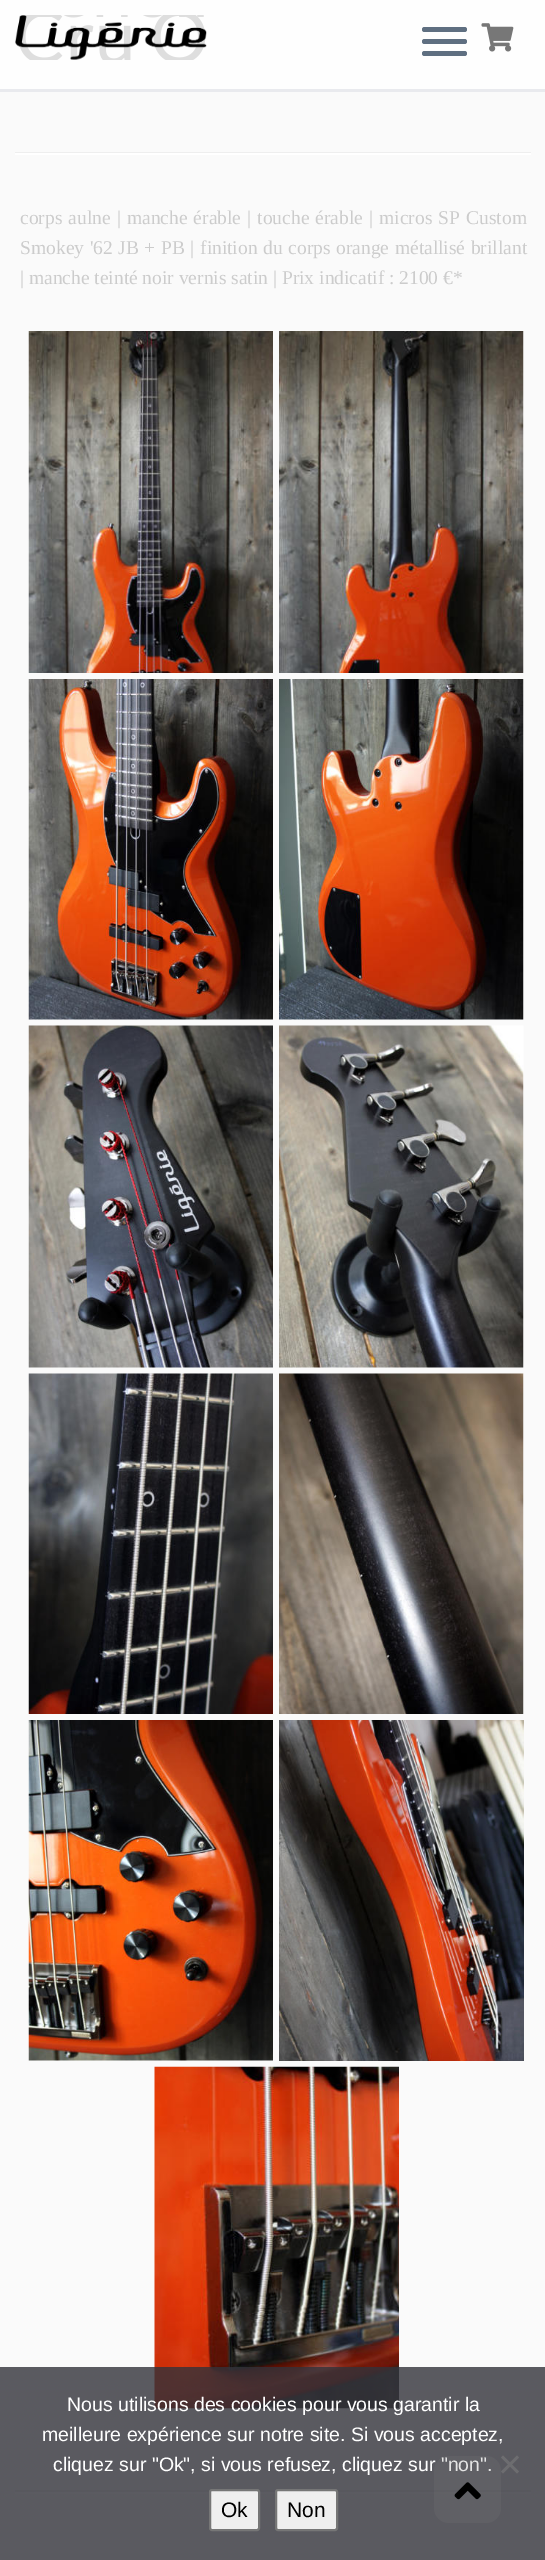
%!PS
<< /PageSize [545 2560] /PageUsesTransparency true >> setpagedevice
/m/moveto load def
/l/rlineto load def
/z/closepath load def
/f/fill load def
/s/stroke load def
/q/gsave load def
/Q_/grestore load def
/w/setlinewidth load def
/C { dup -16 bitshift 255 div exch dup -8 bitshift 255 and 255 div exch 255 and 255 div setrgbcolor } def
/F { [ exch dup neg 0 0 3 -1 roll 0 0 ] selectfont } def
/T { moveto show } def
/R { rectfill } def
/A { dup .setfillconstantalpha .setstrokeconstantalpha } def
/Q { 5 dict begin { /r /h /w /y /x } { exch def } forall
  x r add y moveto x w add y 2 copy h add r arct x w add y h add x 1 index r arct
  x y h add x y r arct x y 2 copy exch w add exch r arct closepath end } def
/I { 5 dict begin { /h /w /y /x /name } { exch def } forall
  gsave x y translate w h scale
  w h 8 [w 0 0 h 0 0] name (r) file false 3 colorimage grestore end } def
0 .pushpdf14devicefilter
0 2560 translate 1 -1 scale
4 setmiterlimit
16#FAFAFA C
0 0 545 2560 R
0.8 A
16#FFFFFF C
0 0 545 89 R
1 A
16#E9EAEE C
0 89 545 3 R
(1.rgb) 15 15 192 45 I
16#5F6F81 C
422 27 45 5 2.5 Q f
422 39 45 5 2.5 Q f
422 51 45 5 2.5 Q f
(2.rgb) 481 23 33 29 I
16#EEEEEE C
15 152 516 1 R
16#FFFFFF C
15 153 516 2 R
/LiberationSerif-Regular 19.5 F
16#CCCCCC C
20 224 m 1.25 0 32 (corps aulne | manche érable | touche érable | micros SP Custom) widthshow
20 254 m .75 0 32 (Smokey '62 JB + PB | finition du corps orange métallisé brillant) widthshow
(| manche teinté noir vernis satin | Prix indicatif : 2100 €*) 20 284 T
(3.rgb) 28 331 245 342 I
(4.rgb) 279 331 245 342 I
(5.rgb) 28 679 245 341 I
(6.rgb) 279 679 245 341 I
(7.rgb) 28 1025 245 343 I
(8.rgb) 279 1025 245 343 I
(9.rgb) 28 1373 245 341 I
(10.rgb) 279 1373 245 341 I
(11.rgb) 28 1720 245 341 I
(12.rgb) 279 1720 245 341 I
(13.rgb) 154 2066 245 343 I
16#EEEEEE C
15 2490 516 2 R
16#FFFFFF C
15 2492 516 2 R
0.8 A
16#32323A C
0 2367 545 193 R
/LiberationSans-Regular 19.5 F
1 A
16#FFFFFF C
(Nous utilisons des cookies pour vous garantir la) 67 2411 T
(meilleure expérience sur notre site. Si vous acceptez,) 42 2441 T
(cliquez sur "Ok", si vous refusez, cliquez sur "non".) 53 2471 T
16#6D6D70 C
517 2455.5 m 2 2 l -16 16 l -2 -2 l z f
501 2457.5 m 2 -2 l 16 16 l -2 2 l z f
16#EFEFEF C
210 2490 49 40 2 Q q f Q_
16#767676 C
2 w
s
/LiberationSans-Regular 21 F
16#000000 C
(Ok) 221 2517 T
16#EFEFEF C
276 2490 61 40 2 Q q f Q_
16#767676 C
s
16#000000 C
(Non) 287 2517 T
0.2 A
16#777777 C
434 2456 67 67 15 Q f
1 A
(14.rgb) 454 2482 27 18 I
.poppdf14devicefilter showpage
